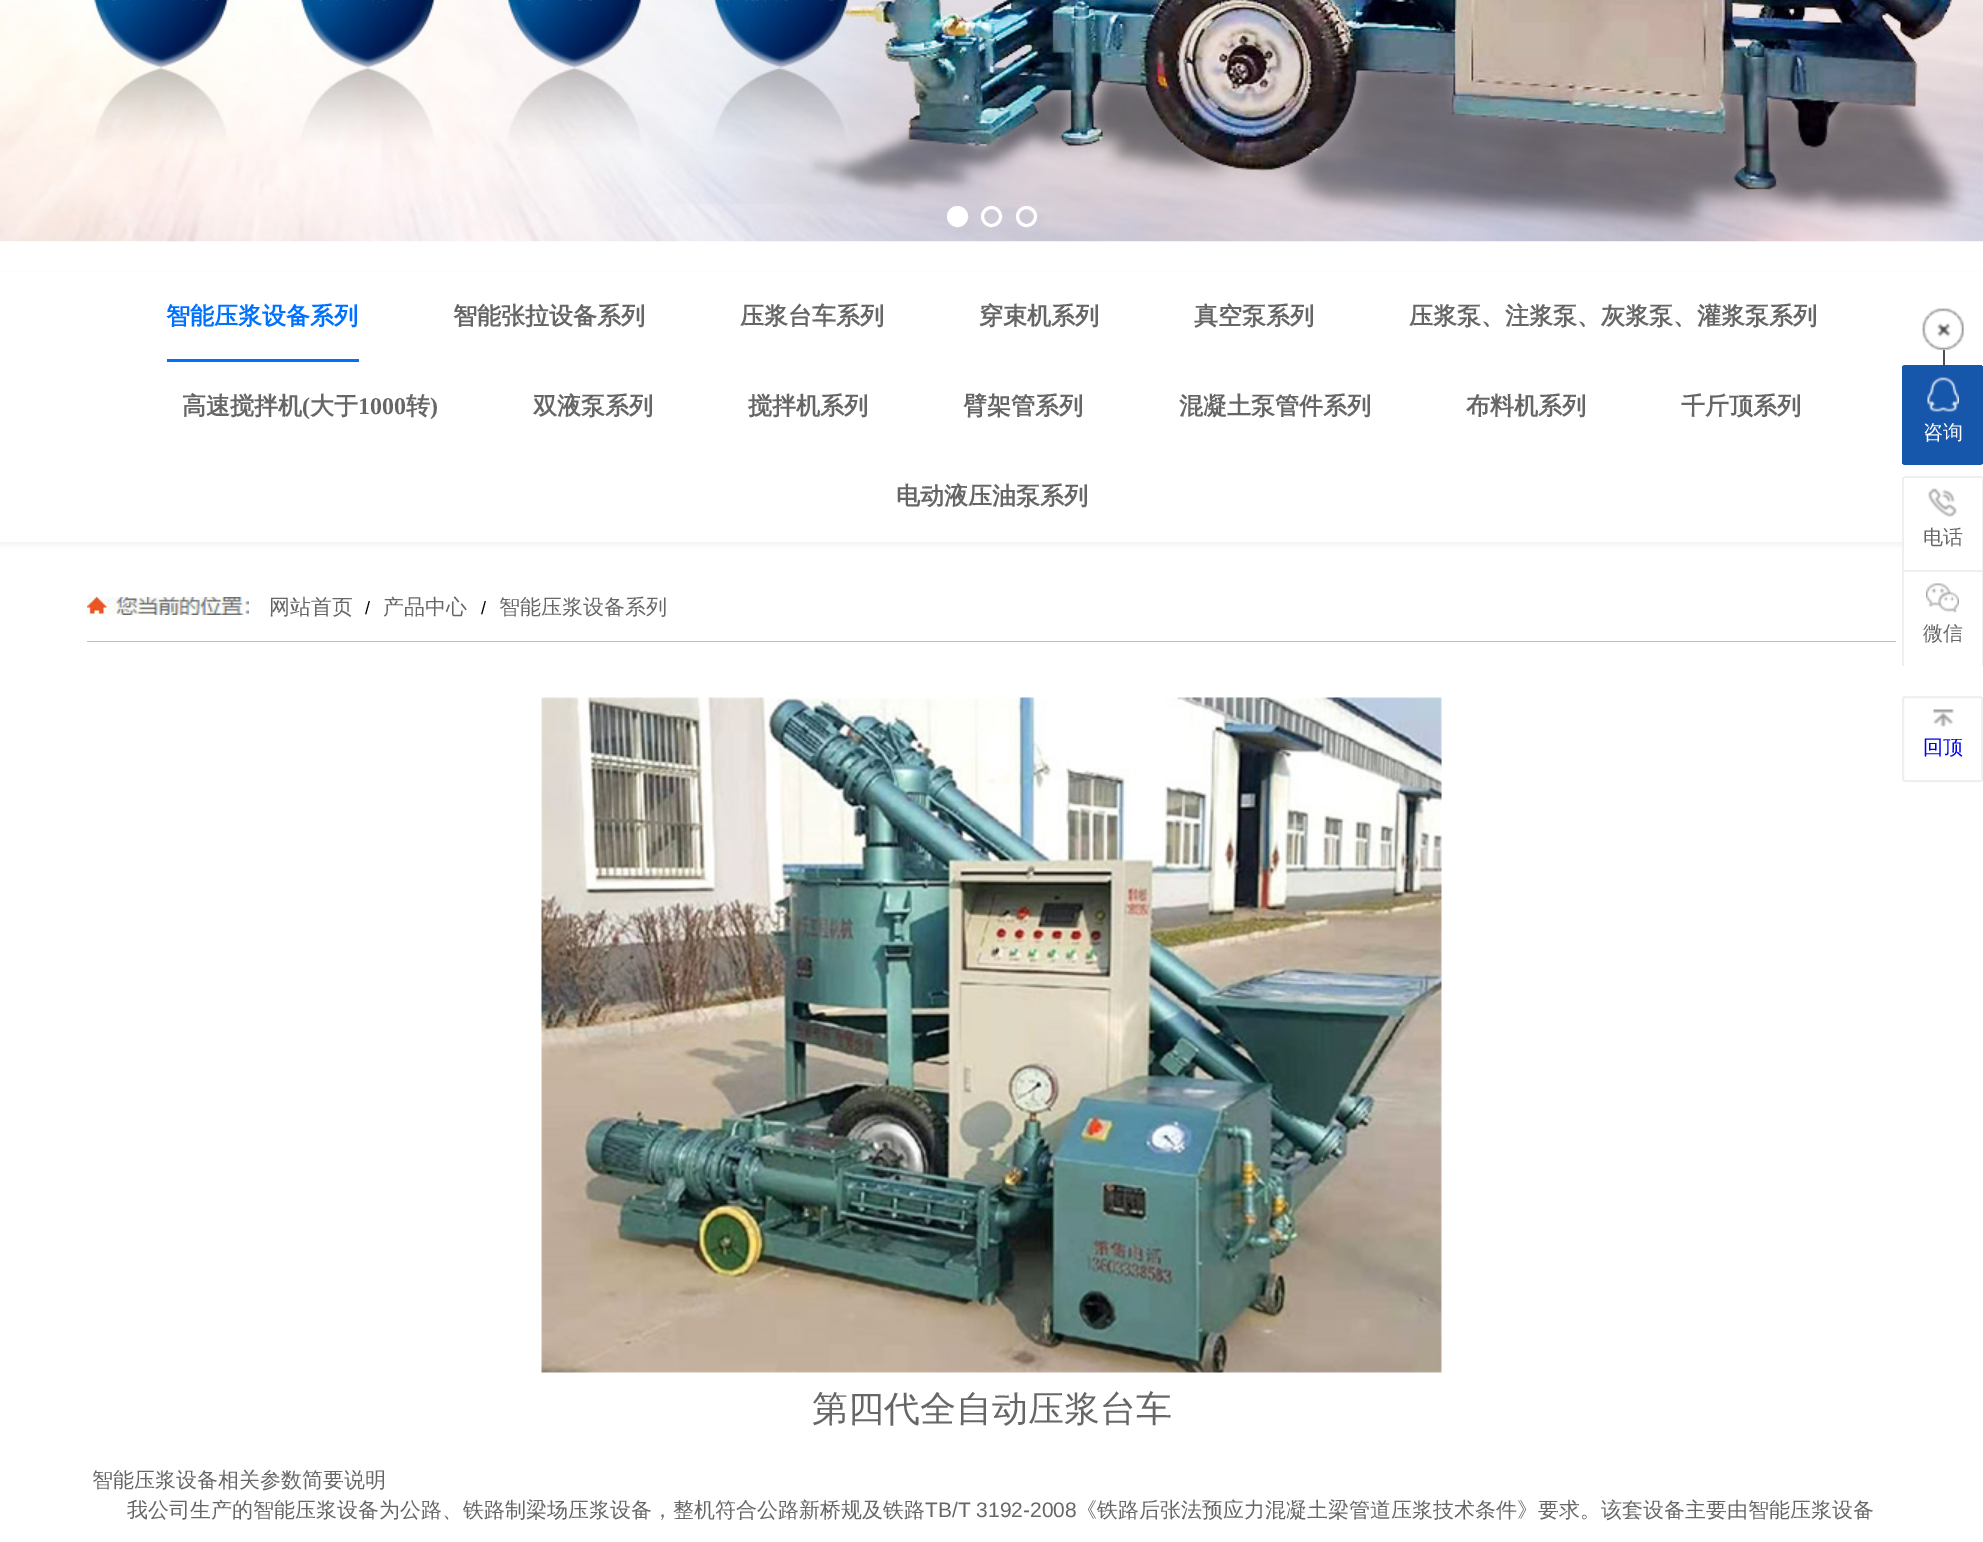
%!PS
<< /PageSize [1983 1542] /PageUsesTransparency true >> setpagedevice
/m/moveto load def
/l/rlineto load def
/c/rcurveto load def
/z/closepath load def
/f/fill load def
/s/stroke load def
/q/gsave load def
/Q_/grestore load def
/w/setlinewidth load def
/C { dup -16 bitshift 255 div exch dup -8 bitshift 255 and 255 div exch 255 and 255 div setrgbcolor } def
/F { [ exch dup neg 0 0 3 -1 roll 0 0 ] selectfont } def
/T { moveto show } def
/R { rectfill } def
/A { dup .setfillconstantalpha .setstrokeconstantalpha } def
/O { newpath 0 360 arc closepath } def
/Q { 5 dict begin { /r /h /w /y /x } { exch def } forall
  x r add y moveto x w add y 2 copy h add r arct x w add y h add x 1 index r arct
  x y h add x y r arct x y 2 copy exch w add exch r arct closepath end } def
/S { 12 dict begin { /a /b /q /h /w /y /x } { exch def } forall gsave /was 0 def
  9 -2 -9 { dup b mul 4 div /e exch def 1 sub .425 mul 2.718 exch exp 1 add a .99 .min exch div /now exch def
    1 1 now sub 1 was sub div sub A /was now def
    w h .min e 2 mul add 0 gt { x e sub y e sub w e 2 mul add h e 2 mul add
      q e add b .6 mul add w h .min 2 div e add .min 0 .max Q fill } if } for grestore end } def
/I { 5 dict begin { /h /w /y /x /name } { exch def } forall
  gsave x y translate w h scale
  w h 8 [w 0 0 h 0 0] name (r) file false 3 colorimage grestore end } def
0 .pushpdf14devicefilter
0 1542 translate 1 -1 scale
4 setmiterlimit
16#FFFFFF C
0 0 1983 1542 R
(1.rgb) 0 0 1983 242 I
957.5 216.5 9 O q f Q_
3 w
s
991.5 216.5 9 O s
1026.5 216.5 9 O s
16#000000 C
0 275 1983 270 0 3 .05 S
16#FFFFFF C
0 272 1983 270 R
/WenQuanYiZenHei-Bold 24 F
16#0070FF C
(智能压浆设备系列) 166 324 T
167 359 192 3 R
16#666666 C
(智能张拉设备系列) 453 324 T
(压浆台车系列) 740 324 T
(穿束机系列) 979 324 T
(真空泵系列) 1194 324 T
(压浆泵、注浆泵、灰浆泵、灌浆泵系列) 1409 324 T
(高速搅拌机) 182 414 T
/LiberationSerif-Bold 24 F
(\() 302 414 T
/WenQuanYiZenHei-Bold 24 F
(大于) 310 414 T
/LiberationSerif-Bold 24 F
(1000) 358 414 T
/WenQuanYiZenHei-Bold 24 F
(转) 406 414 T
/LiberationSerif-Bold 24 F
(\)) 430 414 T
/WenQuanYiZenHei-Bold 24 F
(双液泵系列) 533 414 T
(搅拌机系列) 748 414 T
(臂架管系列) 963 414 T
(混凝土泵管件系列) 1179 414 T
(布料机系列) 1466 414 T
(千斤顶系列) 1681 414 T
(电动液压油泵系列) 896 504 T
(2.rgb) 87 597 162 18 I
16#BFBFBF C
87 641 1809 1 R
/WenQuanYiZenHei-Medium 21 F
16#666666 C
(网站首页) 269 614 T
/LiberationSans-Regular 18 F
16#000000 C
(/) 365 614 T
/WenQuanYiZenHei-Medium 21 F
16#666666 C
(产品中心) 383 614 T
/LiberationSans-Regular 18 F
16#000000 C
(/) 481 614 T
/WenQuanYiZenHei-Medium 21 F
16#666666 C
(智能压浆设备系列) 499 614 T
(3.rgb) 1922 308 42 42 I
16#4F4F4F C
1943 350 2 18 R
16#1757AB C
1902 365 81 100 3 Q f
1904 365 78 1 R
1982 366 1 98 R
1902 366 1 98 R
(4.rgb) 1927 377 32 35 I
/WenQuanYiZenHei-Medium 20 F
16#FFFFFF C
(咨询) 1923 439 T
1905 476 m 75 0 l 1.5 0 3 1.5 3 3 c 0 91 l -81 0 l 0 -91 l 0 -1.5 1.5 -3 3 -3 c z f
16#EFEFEF C
1904 476 78 2 R
1982 477 1 93 R
1902 477 2 93 R
(5.rgb) 1928 488 29 29 I
16#666666 C
(电话) 1923 544 T
16#EFEFEF C
1902 570 81 2 R
1982 570 1 96 R
1902 570 2 96 R
(6.rgb) 1926 583 33 30 I
16#666666 C
(微信) 1923 640 T
16#EFEFEF C
2 w
1903 697 79 84 2 Q s
(7.rgb) 1933 709 21 18 I
16#0000EE C
(回顶) 1923 754 T
(8.rgb) 541 697 901 676 I
/WenQuanYiZenHei-Medium 36 F
16#666666 C
(第四代全自动压浆台车) 812 1421 T
/WenQuanYiZenHei-Medium 21 F
(智能压浆设备相关参数简要说明) 92 1487 T
(我公司生产的智能压浆设备为公路、铁路制梁场压浆设备，整机符合公路新桥规及铁路) 127 1517 T
/LiberationSans-Regular 21 F
(TB/T 3192-2008) 925 1517 T
/WenQuanYiZenHei-Medium 21 F
(《铁路后张法预应力混凝土梁管道压浆技术条件》要求。该套设备主要由智能压浆设备) 1076 1517 T
.poppdf14devicefilter showpage
